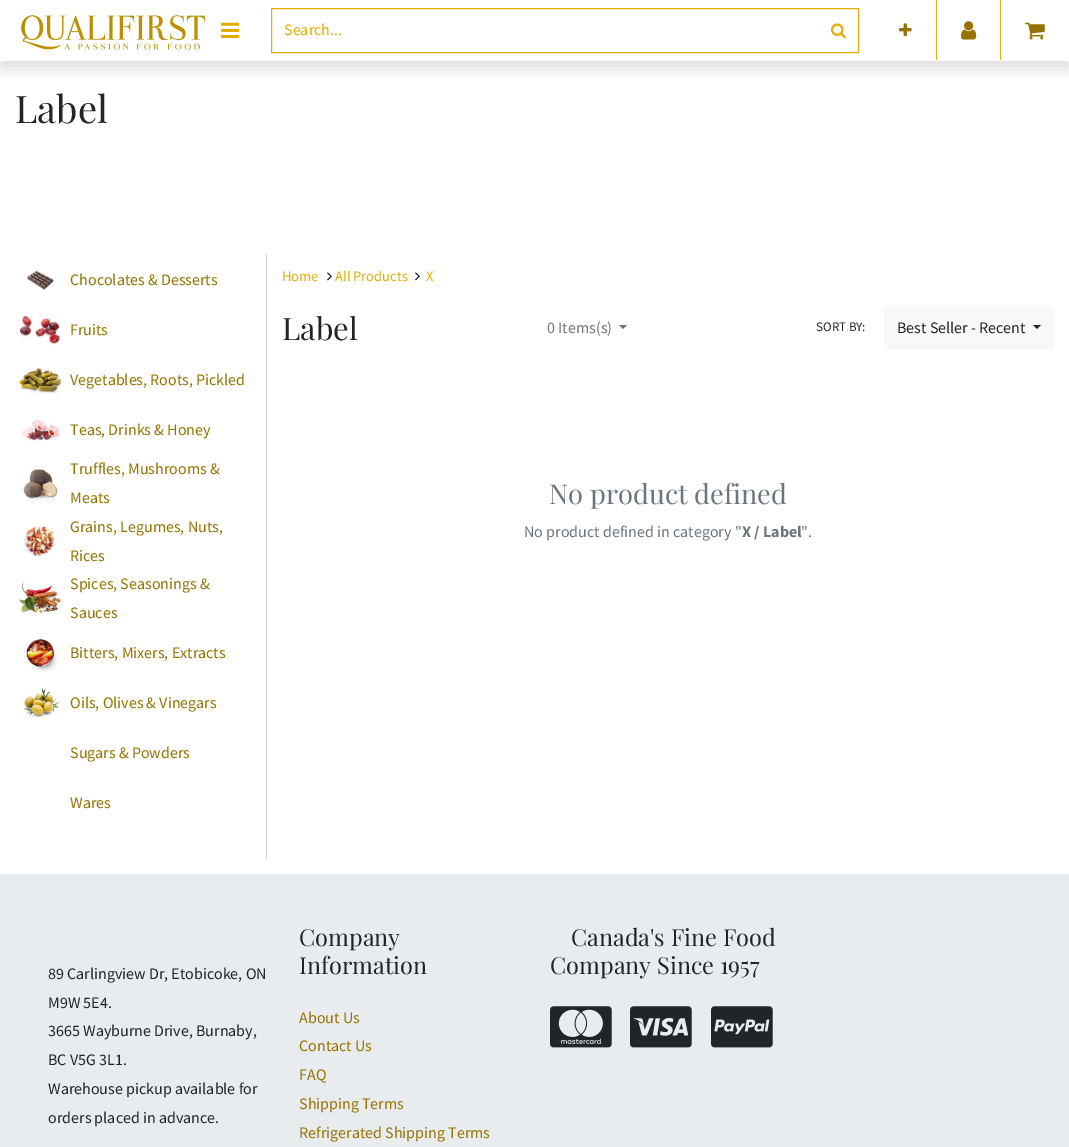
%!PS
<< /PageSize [1069 1147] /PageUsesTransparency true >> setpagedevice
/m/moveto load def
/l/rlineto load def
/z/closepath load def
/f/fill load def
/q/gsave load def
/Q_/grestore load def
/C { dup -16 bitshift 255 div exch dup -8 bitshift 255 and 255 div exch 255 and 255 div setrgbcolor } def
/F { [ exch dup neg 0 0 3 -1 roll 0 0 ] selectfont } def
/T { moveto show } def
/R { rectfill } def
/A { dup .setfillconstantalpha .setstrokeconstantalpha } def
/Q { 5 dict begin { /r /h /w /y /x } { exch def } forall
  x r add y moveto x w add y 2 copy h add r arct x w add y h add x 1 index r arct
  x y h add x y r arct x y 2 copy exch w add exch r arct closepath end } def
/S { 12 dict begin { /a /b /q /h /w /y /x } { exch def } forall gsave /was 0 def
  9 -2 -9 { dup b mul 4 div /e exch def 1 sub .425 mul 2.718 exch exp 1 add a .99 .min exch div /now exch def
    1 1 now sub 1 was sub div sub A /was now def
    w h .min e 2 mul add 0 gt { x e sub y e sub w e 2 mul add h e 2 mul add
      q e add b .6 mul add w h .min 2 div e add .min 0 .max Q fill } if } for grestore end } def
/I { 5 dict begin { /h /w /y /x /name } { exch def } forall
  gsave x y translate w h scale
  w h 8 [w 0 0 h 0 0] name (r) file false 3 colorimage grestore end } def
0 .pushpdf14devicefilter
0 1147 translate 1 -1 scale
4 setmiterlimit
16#FFFFFF C
0 0 1069 1147 R
q
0 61 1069 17 rectclip
16#222222 C
0 8 1069 61 0 8 .15 S
Q_
(1.rgb) 21 15 185 35 I
(2.rgb) 221 22 19 16 I
16#E2AD00 C
271.5 8.5 587 44 rectstroke
/SourceSansPro-Regular 16 F
(Search...) 284 35 T
(3.rgb) 831 23 15 16 I
(4.rgb) 899 23 13 13 I
936 0 1 60 R
(5.rgb) 961 21 16 19 I
1000 0 1 60 R
(6.rgb) 1025 22 20 18 I
/PlayfairDisplay-Regular 38 F
16#212529 C
(Label) 15 123 T
16#CED4DA C
266 254 1 605 R
(7.rgb) 27 270 27 20 I
/SourceSansPro-Regular 16 F
16#967200 C
(Chocolates & Desserts) 70 285 T
(8.rgb) 19 316 42 29 I
(Fruits) 70 335 T
(9.rgb) 18 367 44 27 I
(Vegetables, Roots, Pickled) 70 385 T
(10.rgb) 21 419 39 22 I
(Teas, Drinks & Honey) 70 435 T
(11.rgb) 23 469 35 34 I
(Truffles, Mushrooms &) 70 474 T
(Meats) 70 503 T
(12.rgb) 24 525 31 32 I
(Grains, Legumes, Nuts,) 70 532 T
(Rices) 70 561 T
(13.rgb) 18 582 45 33 I
(Spices, Seasonings &) 70 589 T
(Sauces) 70 618 T
(14.rgb) 24 638 34 34 I
(Bitters, Mixers, Extracts) 70 658 T
(15.rgb) 24 688 38 30 I
(Oils, Olives & Vinegars) 70 708 T
(Sugars & Powders) 70 758 T
(Wares) 70 808 T
/SourceSansPro-Regular 14.5 F
16#E2AD00 C
(Home) 282 281 T
(16.rgb) 327 272 5 9 I
(All Products) 335 281 T
(16.rgb) 415 272 5 9 I
(X) 426 281 T
/PlayfairDisplay-Regular 31 F
16#212529 C
(Label) 282 340 T
/SourceSansPro-Regular 16 F
16#6C757D C
(0 Items\(s\)) 547 333 T
619 325 m 8 0 l -4 4 l z f
/SourceSansPro-Regular 13 F
16#212529 C
(SORT BY:) 816 331 T
16#F9F8F6 C
884 306 170 43 R
/SourceSansPro-Regular 16 F
16#212529 C
(Best Seller - Recent) 897 333 T
1033 325 m 8 0 l -4 4 l z f
/PlayfairDisplay-Regular 27.25 F
16#6C757D C
(No product defined) 549 504 T
/SourceSansPro-Regular 16 F
(No product defined in category ") 524 537 T
/SourceSansPro-Bold 16 F
(X / Label) 742 537 T
/SourceSansPro-Regular 16 F
(".) 801 537 T
16#E9ECEF C
0 874 1069 273 R
16#212529 C
(89 Carlingview Dr, Etobicoke, ON) 48 979 T
(M9W 5E4.) 48 1008 T
(3665 Wayburne Drive, Burnaby,) 48 1036 T
(BC V5G 3L1.) 48 1065 T
(Warehouse pickup available for) 48 1094 T
(orders placed in advance.) 48 1123 T
/PlayfairDisplay-Regular 23.5 F
(Company) 299 946 T
(Information) 299 974 T
/SourceSansPro-Regular 16 F
16#967200 C
(About Us) 299 1023 T
(Contact Us) 299 1051 T
(FAQ) 299 1080 T
(Shipping Terms) 299 1109 T
(Refrigerated Shipping Terms) 299 1138 T
/PlayfairDisplay-Regular 23.5 F
16#212529 C
(Canada's Fine Food) 571 946 T
(Company Since 1957) 550 974 T
(17.rgb) 550 1006 62 42 I
(18.rgb) 630 1006 62 42 I
(19.rgb) 711 1006 62 42 I
.poppdf14devicefilter showpage
